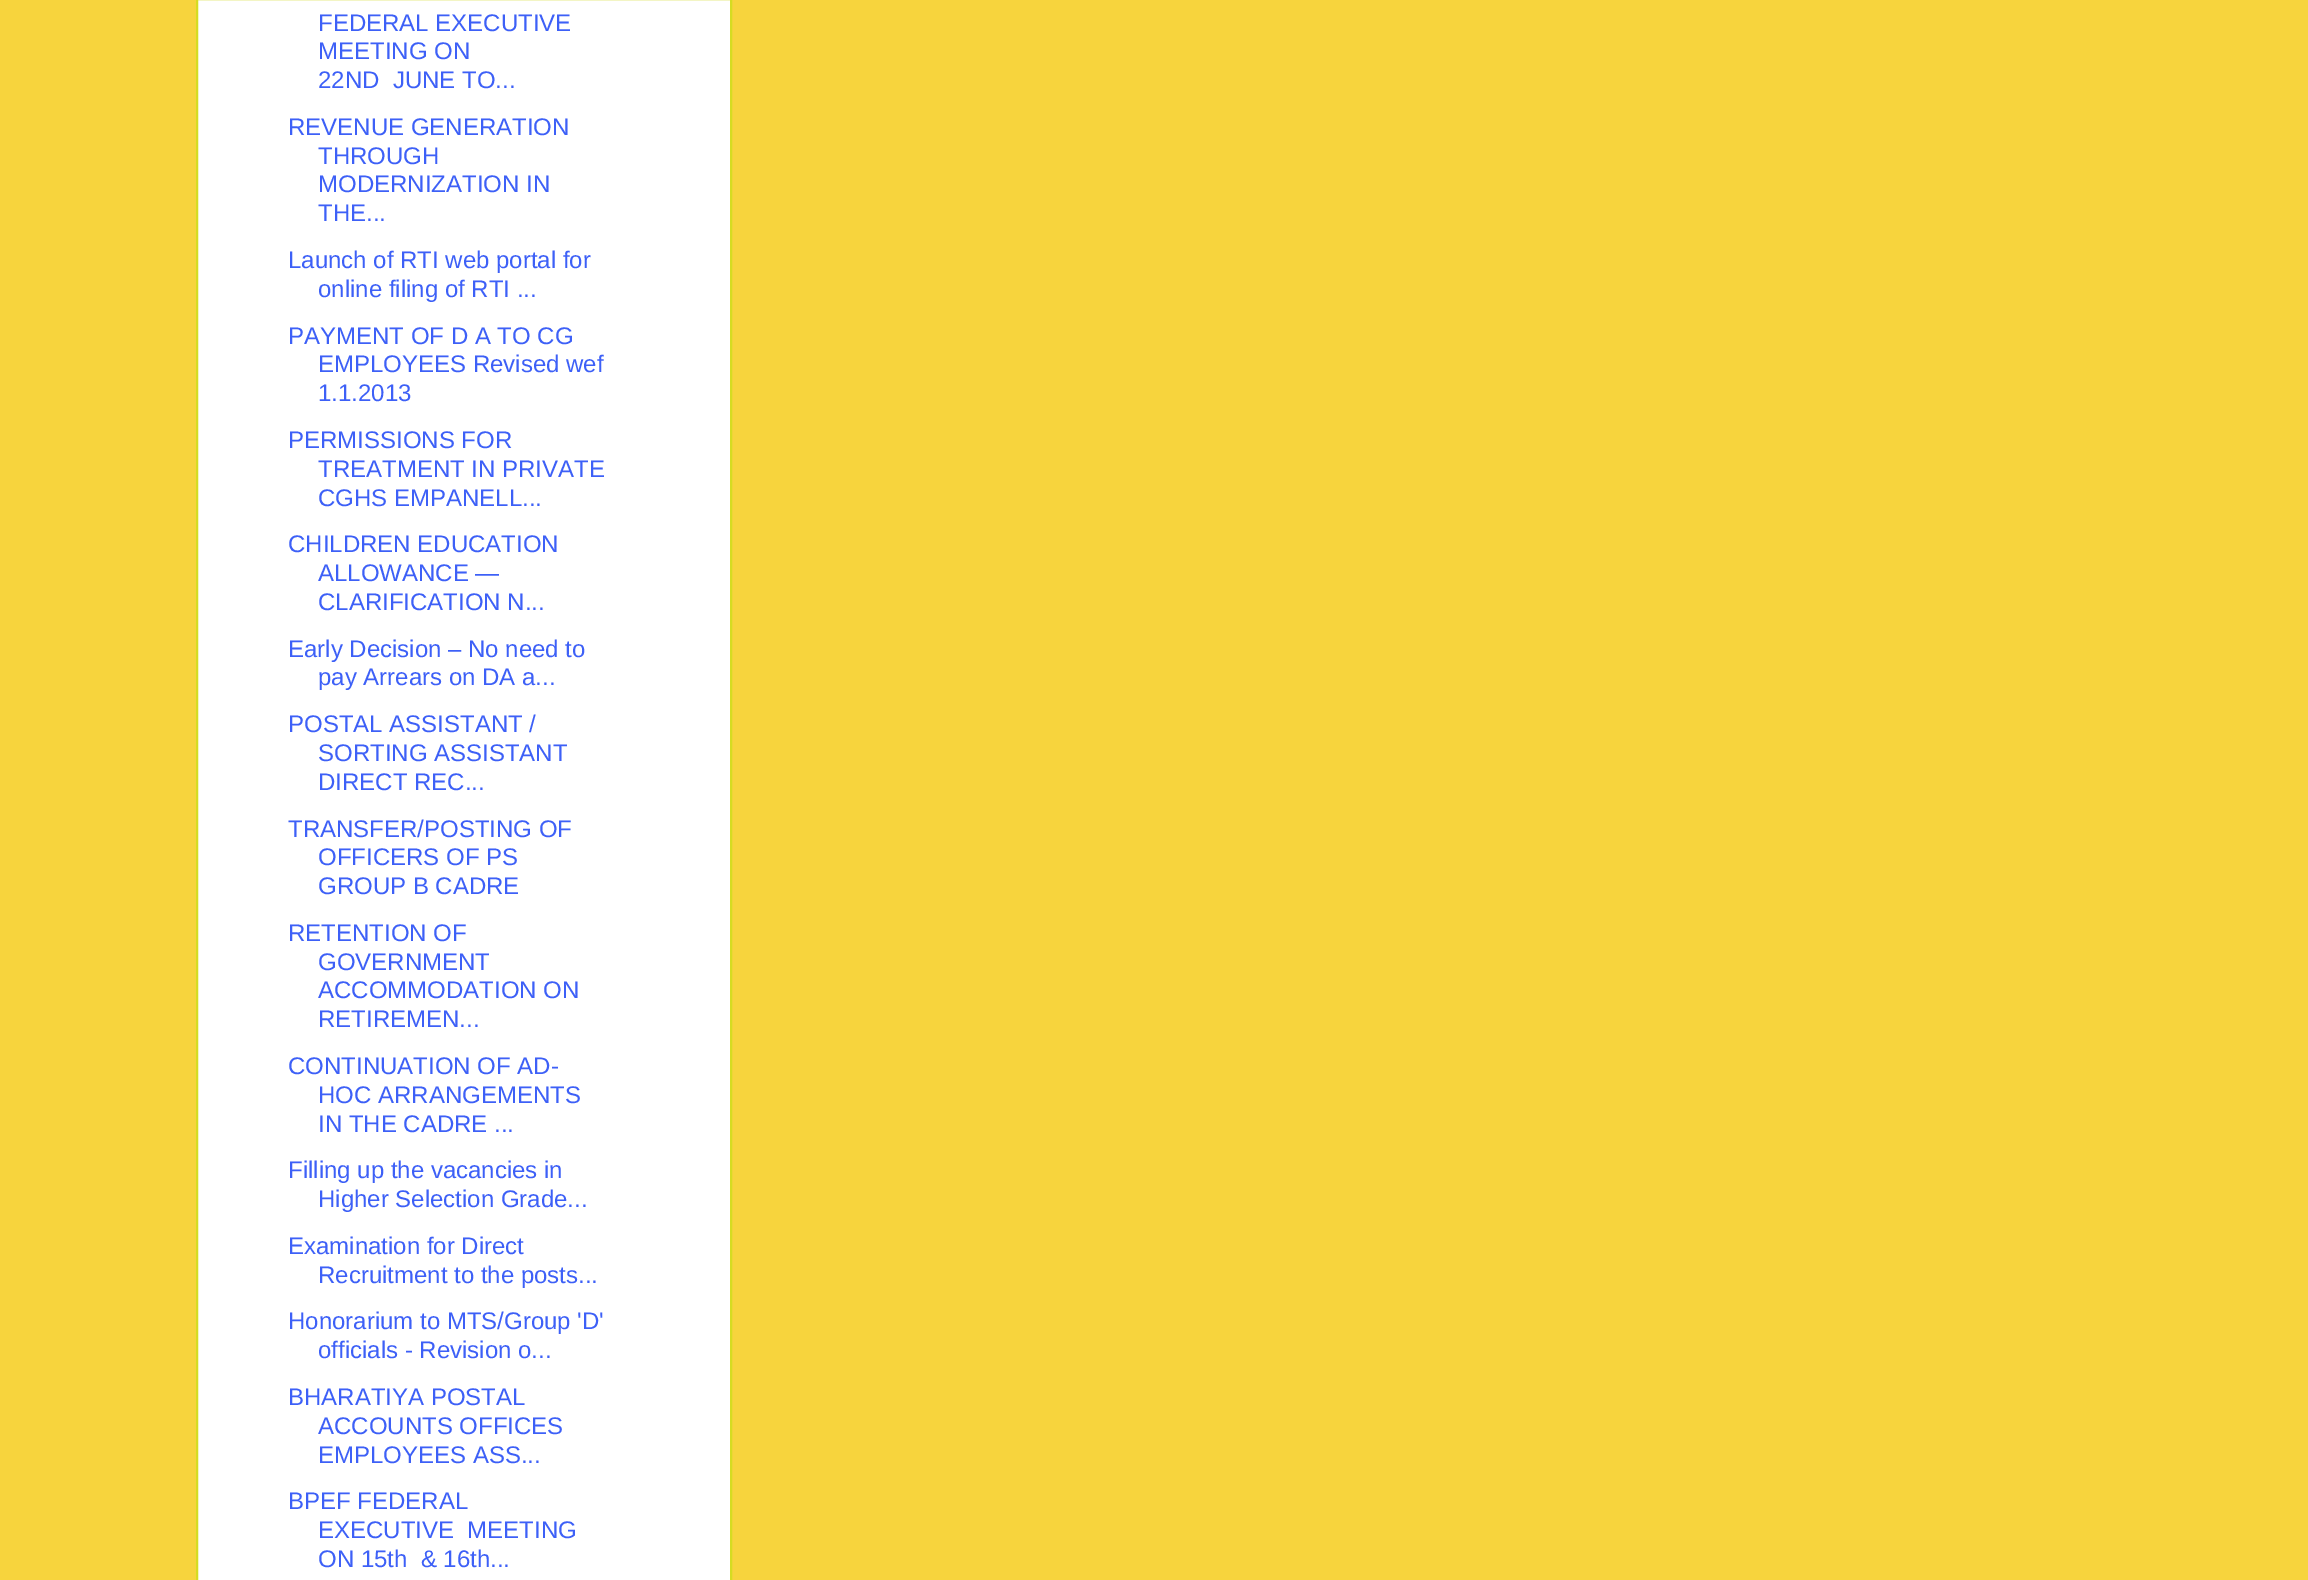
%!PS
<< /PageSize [2308 1580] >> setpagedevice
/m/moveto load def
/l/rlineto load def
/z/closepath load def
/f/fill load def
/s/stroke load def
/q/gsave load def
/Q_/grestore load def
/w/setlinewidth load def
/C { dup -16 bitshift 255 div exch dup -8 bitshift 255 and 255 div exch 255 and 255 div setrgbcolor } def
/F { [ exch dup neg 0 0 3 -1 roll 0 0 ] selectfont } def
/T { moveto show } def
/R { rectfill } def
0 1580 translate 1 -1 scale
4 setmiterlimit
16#F7D43D C
0 0 2308 1580 R
16#FFFFFF C
197 -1 m 534 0 l 0 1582 l -534 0 l z q f Q_
16#D5DC22 C
2 w
s
/LiberationSans-Regular 24 F
16#3D60F7 C
(FEDERAL EXECUTIVE) 318 31 T
(MEETING ON) 318 59 T
(22ND  JUNE TO...) 318 88 T
(REVENUE GENERATION) 288 135 T
(THROUGH) 318 164 T
(MODERNIZATION IN) 318 192 T
(THE...) 318 221 T
(Launch of RTI web portal for) 288 268 T
(online filing of RTI ...) 318 297 T
(PAYMENT OF D A TO CG) 288 344 T
(EMPLOYEES Revised wef) 318 372 T
(1.1.2013) 318 401 T
(PERMISSIONS FOR) 288 448 T
(TREATMENT IN PRIVATE) 318 477 T
(CGHS EMPANELL...) 318 506 T
(CHILDREN EDUCATION) 288 552 T
(ALLOWANCE —) 318 581 T
(CLARIFICATION N...) 318 610 T
(Early Decision – No need to) 288 657 T
(pay Arrears on DA a...) 318 685 T
(POSTAL ASSISTANT /) 288 732 T
(SORTING ASSISTANT) 318 761 T
(DIRECT REC...) 318 790 T
(TRANSFER/POSTING OF) 288 837 T
(OFFICERS OF PS) 318 865 T
(GROUP B CADRE) 318 894 T
(RETENTION OF) 288 941 T
(GOVERNMENT) 318 970 T
(ACCOMMODATION ON) 318 998 T
(RETIREMEN...) 318 1027 T
(CONTINUATION OF AD-) 288 1074 T
(HOC ARRANGEMENTS) 318 1103 T
(IN THE CADRE ...) 318 1132 T
(Filling up the vacancies in) 288 1178 T
(Higher Selection Grade...) 318 1207 T
(Examination for Direct) 288 1254 T
(Recruitment to the posts...) 318 1283 T
(Honorarium to MTS/Group 'D') 288 1329 T
(officials - Revision o...) 318 1358 T
(BHARATIYA POSTAL) 288 1405 T
(ACCOUNTS OFFICES) 318 1434 T
(EMPLOYEES ASS...) 318 1463 T
(BPEF FEDERAL) 288 1509 T
(EXECUTIVE  MEETING) 318 1538 T
(ON 15th  & 16th...) 318 1567 T
showpage
